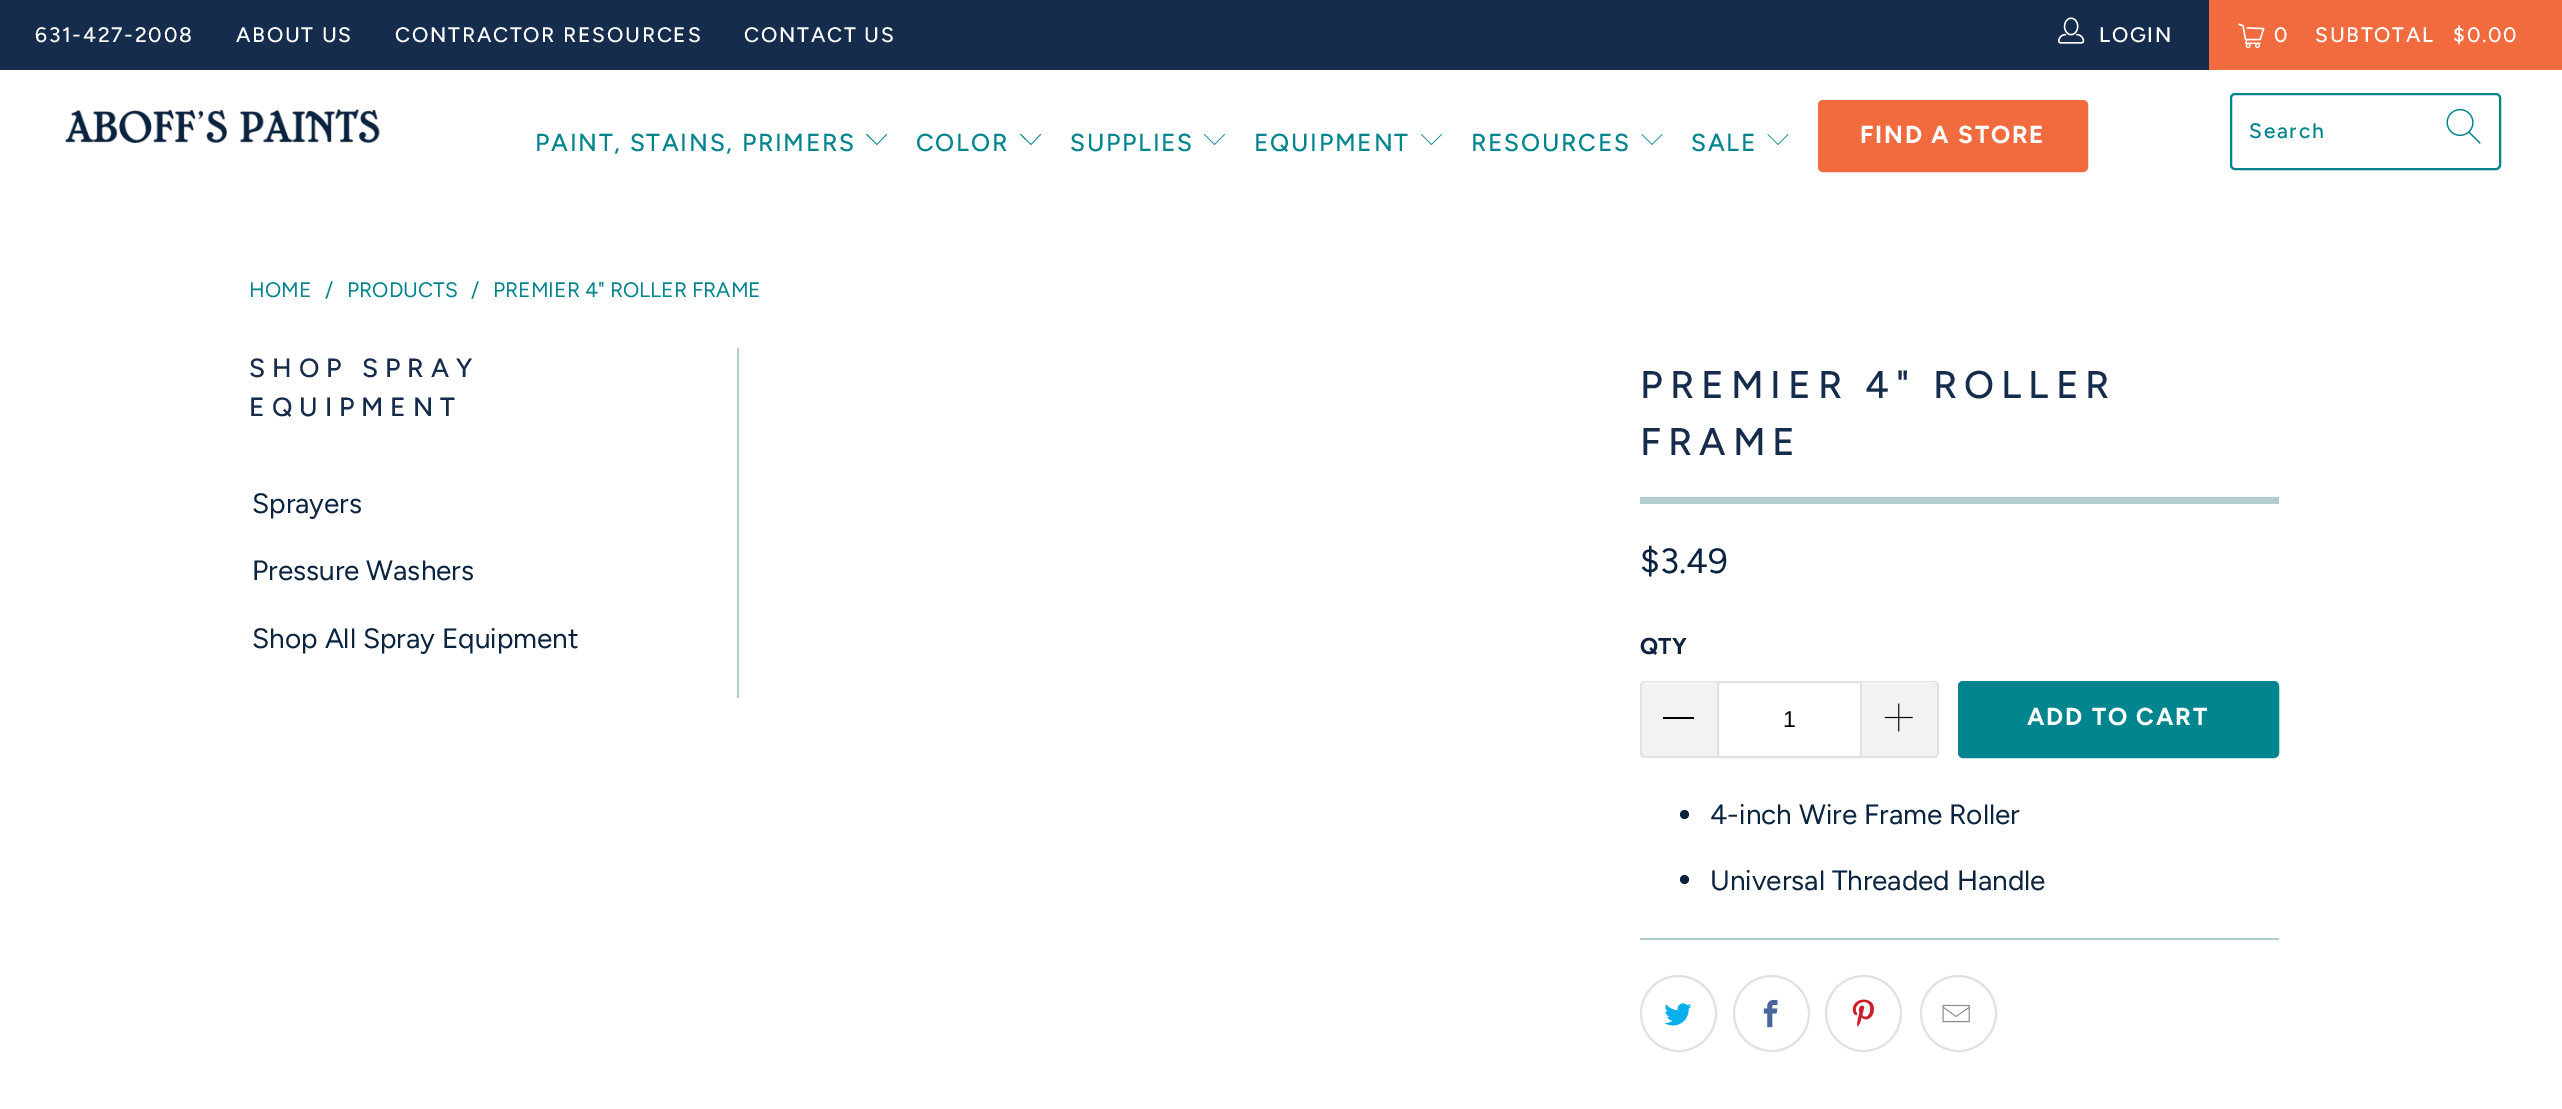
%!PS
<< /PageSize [2562 1109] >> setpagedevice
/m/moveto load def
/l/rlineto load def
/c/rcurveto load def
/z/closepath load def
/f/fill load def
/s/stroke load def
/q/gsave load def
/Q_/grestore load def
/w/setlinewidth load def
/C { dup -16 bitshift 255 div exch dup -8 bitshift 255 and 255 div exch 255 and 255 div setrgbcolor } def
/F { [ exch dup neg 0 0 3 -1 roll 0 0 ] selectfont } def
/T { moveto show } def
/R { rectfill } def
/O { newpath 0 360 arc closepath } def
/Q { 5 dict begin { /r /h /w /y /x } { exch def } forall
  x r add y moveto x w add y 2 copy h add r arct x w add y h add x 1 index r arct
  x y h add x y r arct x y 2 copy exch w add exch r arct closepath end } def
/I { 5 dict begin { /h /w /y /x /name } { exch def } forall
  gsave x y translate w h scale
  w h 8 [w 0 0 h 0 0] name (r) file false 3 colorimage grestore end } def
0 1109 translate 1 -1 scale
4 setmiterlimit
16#FFFFFF C
0 0 2562 1109 R
16#162C4C C
0 0 2209 70 R
/Figtree-Medium 21 F
16#FFFFFF C
35 42 m 1.75 0 (631-427-2008) ashow
236 42 m 1.75 0 (ABOUT US) ashow
395 42 m 1.75 0 (CONTRACTOR RESOURCES) ashow
744 42 m 1.75 0 (CONTACT US) ashow
(1.rgb) 2058 17 27 27 I
2099 42 m 1.75 0 (LOGIN) ashow
16#F26B3F C
2209 0 353 70 R
(2.rgb) 2238 23 27 26 I
16#FFFFFF C
2274 42 m 1.75 0 (0) ashow
2315 42 m 1.75 0 (SUBTOTAL) ashow
2453 42 m 1.75 0 ($0.00) ashow
(3.rgb) 65 109 315 35 I
/Figtree-Medium 24.5 F
16#00858E C
535 151 m 1.75 0 (PAINT, STAINS, PRIMERS) ashow
877 145 m -11 -10.5 l 1 -.5 l 10 10 l 9.5 -10 l .5 .5 l z f
916 151 m 1.75 0 (COLOR) ashow
1031 145 m -11 -10.5 l 1 -.5 l 10 10 l 9.5 -10 l .5 .5 l z f
1070 151 m 1.75 0 (SUPPLIES) ashow
1214.5 145 m -10.5 -10.5 l .5 -.5 l 10 10 l 10 -10 l .5 .5 l z f
1254 151 m 1.75 0 (EQUIPMENT) ashow
1431.5 145 m -10.5 -10.5 l .5 -.5 l 10 10 l 10 -10 l .5 .5 l z f
1471 151 m 1.75 0 (RESOURCES) ashow
1652 145 m -10.5 -10.5 l .5 -.5 l 10 10 l 10 -10 l .5 .5 l z f
1691 151 m 1.75 0 (SALE) ashow
1778 145 m -10.5 -10.5 l .5 -.5 l 10 10 l 10 -10 l .5 .5 l z f
16#F26B3F C
1819 101 268 70 4 Q q f Q_
2 w
s
/Figtree-Bold 24.5 F
16#FFFFFF C
1860 143 m 1.75 0 (FIND A STORE) ashow
16#00858E C
2231 94 269 75 4 Q s
/Figtree-Medium 21 F
2249 138 m 1.75 0 (Search) ashow
(4.rgb) 2446 108 35 36 I
/Figtree-Regular 21 F
(HOME) 249 297 T
(/) 325 297 T
(PRODUCTS) 347 297 T
(/) 471 297 T
(PREMIER 4" ROLLER FRAME) 493 297 T
16#B1CDCE C
737 348 2 350 R
/Figtree-Medium 26.25 F
16#162C4C C
249 377 m 7 0 (SHOP SPRAY) ashow
249 416 m 7 0 (EQUIPMENT) ashow
/Figtree-Regular 28 F
16#0A233F C
(Sprayers) 252 513 T
(Pressure Washers) 252 580 T
(Shop All Spray Equipment) 252 648 T
/Figtree-Medium 38.5 F
16#162C4C C
1640 398 m 7 0 (PREMIER 4" ROLLER) ashow
1640 455 m 7 0 (FRAME) ashow
16#B1CDCE C
1640 497 639 7 R
/Figtree-Regular 35 F
16#0A233F C
($3.49) 1640 573 T
/Figtree-Bold 23 F
(QTY) 1640 654 T
16#F2F2F2 C
1645 681 m 72 0 l 0 77 l -72 0 l -3 0 -5 -2 -5 -5 c 0 -67 l 0 -3 2 -5 5 -5 c z f
16#E2E2E2 C
1645 681 m 72 0 l 0 77 l -72 0 l -3 0 -5 -3 -5 -6 c 0 -66 l 0 -3 2 -5 5 -5 c z 1645 682 m 72 0 l 0 74 l -72 0 l -2 0 -3 -2 -3 -4 c 0 -66 l 0 -2 1 -4 3 -4 c z eofill
16#000000 C
1663 717 31 2 R
16#E2E2E2 C
1718 682 143 75 rectstroke
/LiberationSans-Regular 23 F
16#000000 C
(1) 1783 727 T
16#F2F2F2 C
1862 681 m 72 0 l 3 0 5 2 5 5 c 0 67 l 0 3 -2 5 -5 5 c -72 0 l z f
16#E2E2E2 C
1862 681 m 72 0 l 3 0 5 2 5 5 c 0 66 l 0 3 -2 6 -5 6 c -72 0 l z 1862 682 m 72 0 l 2 0 3 2 3 4 c 0 66 l 0 2 -1 4 -3 4 c -72 0 l z eofill
(5.rgb) 1884 703 29 29 I
16#00858E C
1959 682 319 75 4 Q q f Q_
s
/Figtree-Bold 24.5 F
16#FFFFFF C
2027 725 m 1.75 0 (ADD TO CART) ashow
16#0A233F C
1684.5 814.5 4.5 O f
/Figtree-Regular 28 F
(4-inch Wire Frame Roller) 1710 824 T
1684.5 879.5 4.5 O f
(Universal Threaded Handle) 1710 890 T
16#B1CDCE C
1640 938 639 2 R
16#E2E2E2 C
1678.5 1013.5 37.5 O s
(6.rgb) 1664 1003 28 23 I
1771.5 1013.5 37.5 O s
(7.rgb) 1763 999 15 29 I
1863.5 1013.5 37.5 O s
(8.rgb) 1852 999 22 28 I
1958.5 1013.5 37.5 O s
(9.rgb) 1942 1004 28 19 I
showpage
